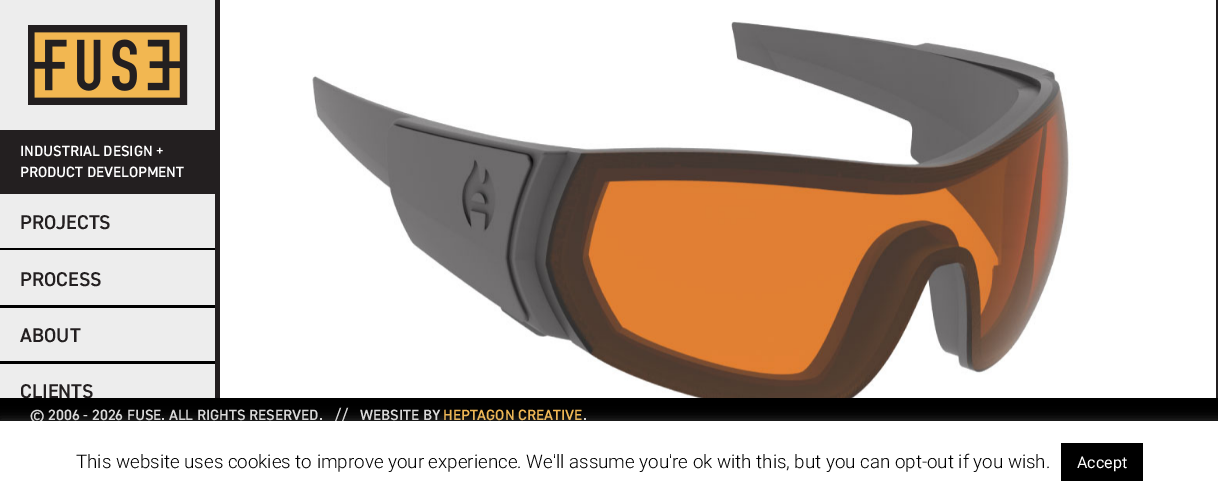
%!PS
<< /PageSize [1218 496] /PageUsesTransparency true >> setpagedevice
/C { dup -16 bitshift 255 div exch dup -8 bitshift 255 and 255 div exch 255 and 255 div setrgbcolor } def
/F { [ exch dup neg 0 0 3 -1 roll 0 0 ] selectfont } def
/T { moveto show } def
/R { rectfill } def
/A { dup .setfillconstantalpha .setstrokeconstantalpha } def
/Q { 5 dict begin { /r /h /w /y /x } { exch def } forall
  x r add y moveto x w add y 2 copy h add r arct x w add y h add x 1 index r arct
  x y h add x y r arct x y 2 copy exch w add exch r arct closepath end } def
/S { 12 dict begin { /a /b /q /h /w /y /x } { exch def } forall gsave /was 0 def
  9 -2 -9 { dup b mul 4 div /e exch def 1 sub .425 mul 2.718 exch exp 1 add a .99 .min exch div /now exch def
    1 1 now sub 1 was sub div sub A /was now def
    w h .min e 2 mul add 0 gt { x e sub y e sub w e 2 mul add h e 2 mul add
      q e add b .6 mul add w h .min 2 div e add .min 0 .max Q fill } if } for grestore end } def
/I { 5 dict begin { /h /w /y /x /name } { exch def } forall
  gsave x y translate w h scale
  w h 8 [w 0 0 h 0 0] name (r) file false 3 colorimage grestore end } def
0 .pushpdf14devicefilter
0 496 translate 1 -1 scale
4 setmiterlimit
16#FFFFFF C
0 0 1218 496 R
16#EDEDED C
0 0 215 398 R
16#231F20 C
215 0 5 398 R
(1.rgb) 28 25 160 80 I
0 130 215 64 R
/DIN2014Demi-Regular 15 F
16#FFFFFF C
(INDUSTRIAL DESIGN +) 20 156 T
(PRODUCT DEVELOPMENT) 20 177 T
16#000000 C
0 248 215 2 R
/DIN2014Demi-Regular 20 F
16#231F20 C
(PROJECTS) 20 229 T
16#000000 C
0 305 215 3 R
16#231F20 C
(PROCESS) 20 286 T
16#000000 C
0 361 215 3 R
16#231F20 C
(ABOUT) 20 342 T
(CLIENTS) 20 398 T
1216 0 2 398 R
(2.rgb) 312 20 761 378 I
16#000000 C
0 398 1218 23 R
/DIN2014Demi-Regular 15 F
16#DBDBDB C
(© 2006 - 2026 FUSE. ALL RIGHTS RESERVED.) 30 420 T
(//) 334 420 T
(WEBSITE BY) 360 420 T
16#F2B751 C
(HEPTAGON CREATIVE) 443 420 T
16#DBDBDB C
(.) 583 420 T
16#ACABAB C
0 420 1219 75 0 6 .3 S
16#FFFFFF C
0 421 1218 75 R
/Roboto-Light 18.75 F
16#000000 C
(This website uses cookies to improve your experience. We'll assume you're ok with this, but you can opt-out if you wish.) 76 468 T
1061 443 82 38 R
/Roboto-Regular 16 F
16#FFFFFF C
(Accept) 1077 468 T
.poppdf14devicefilter showpage
